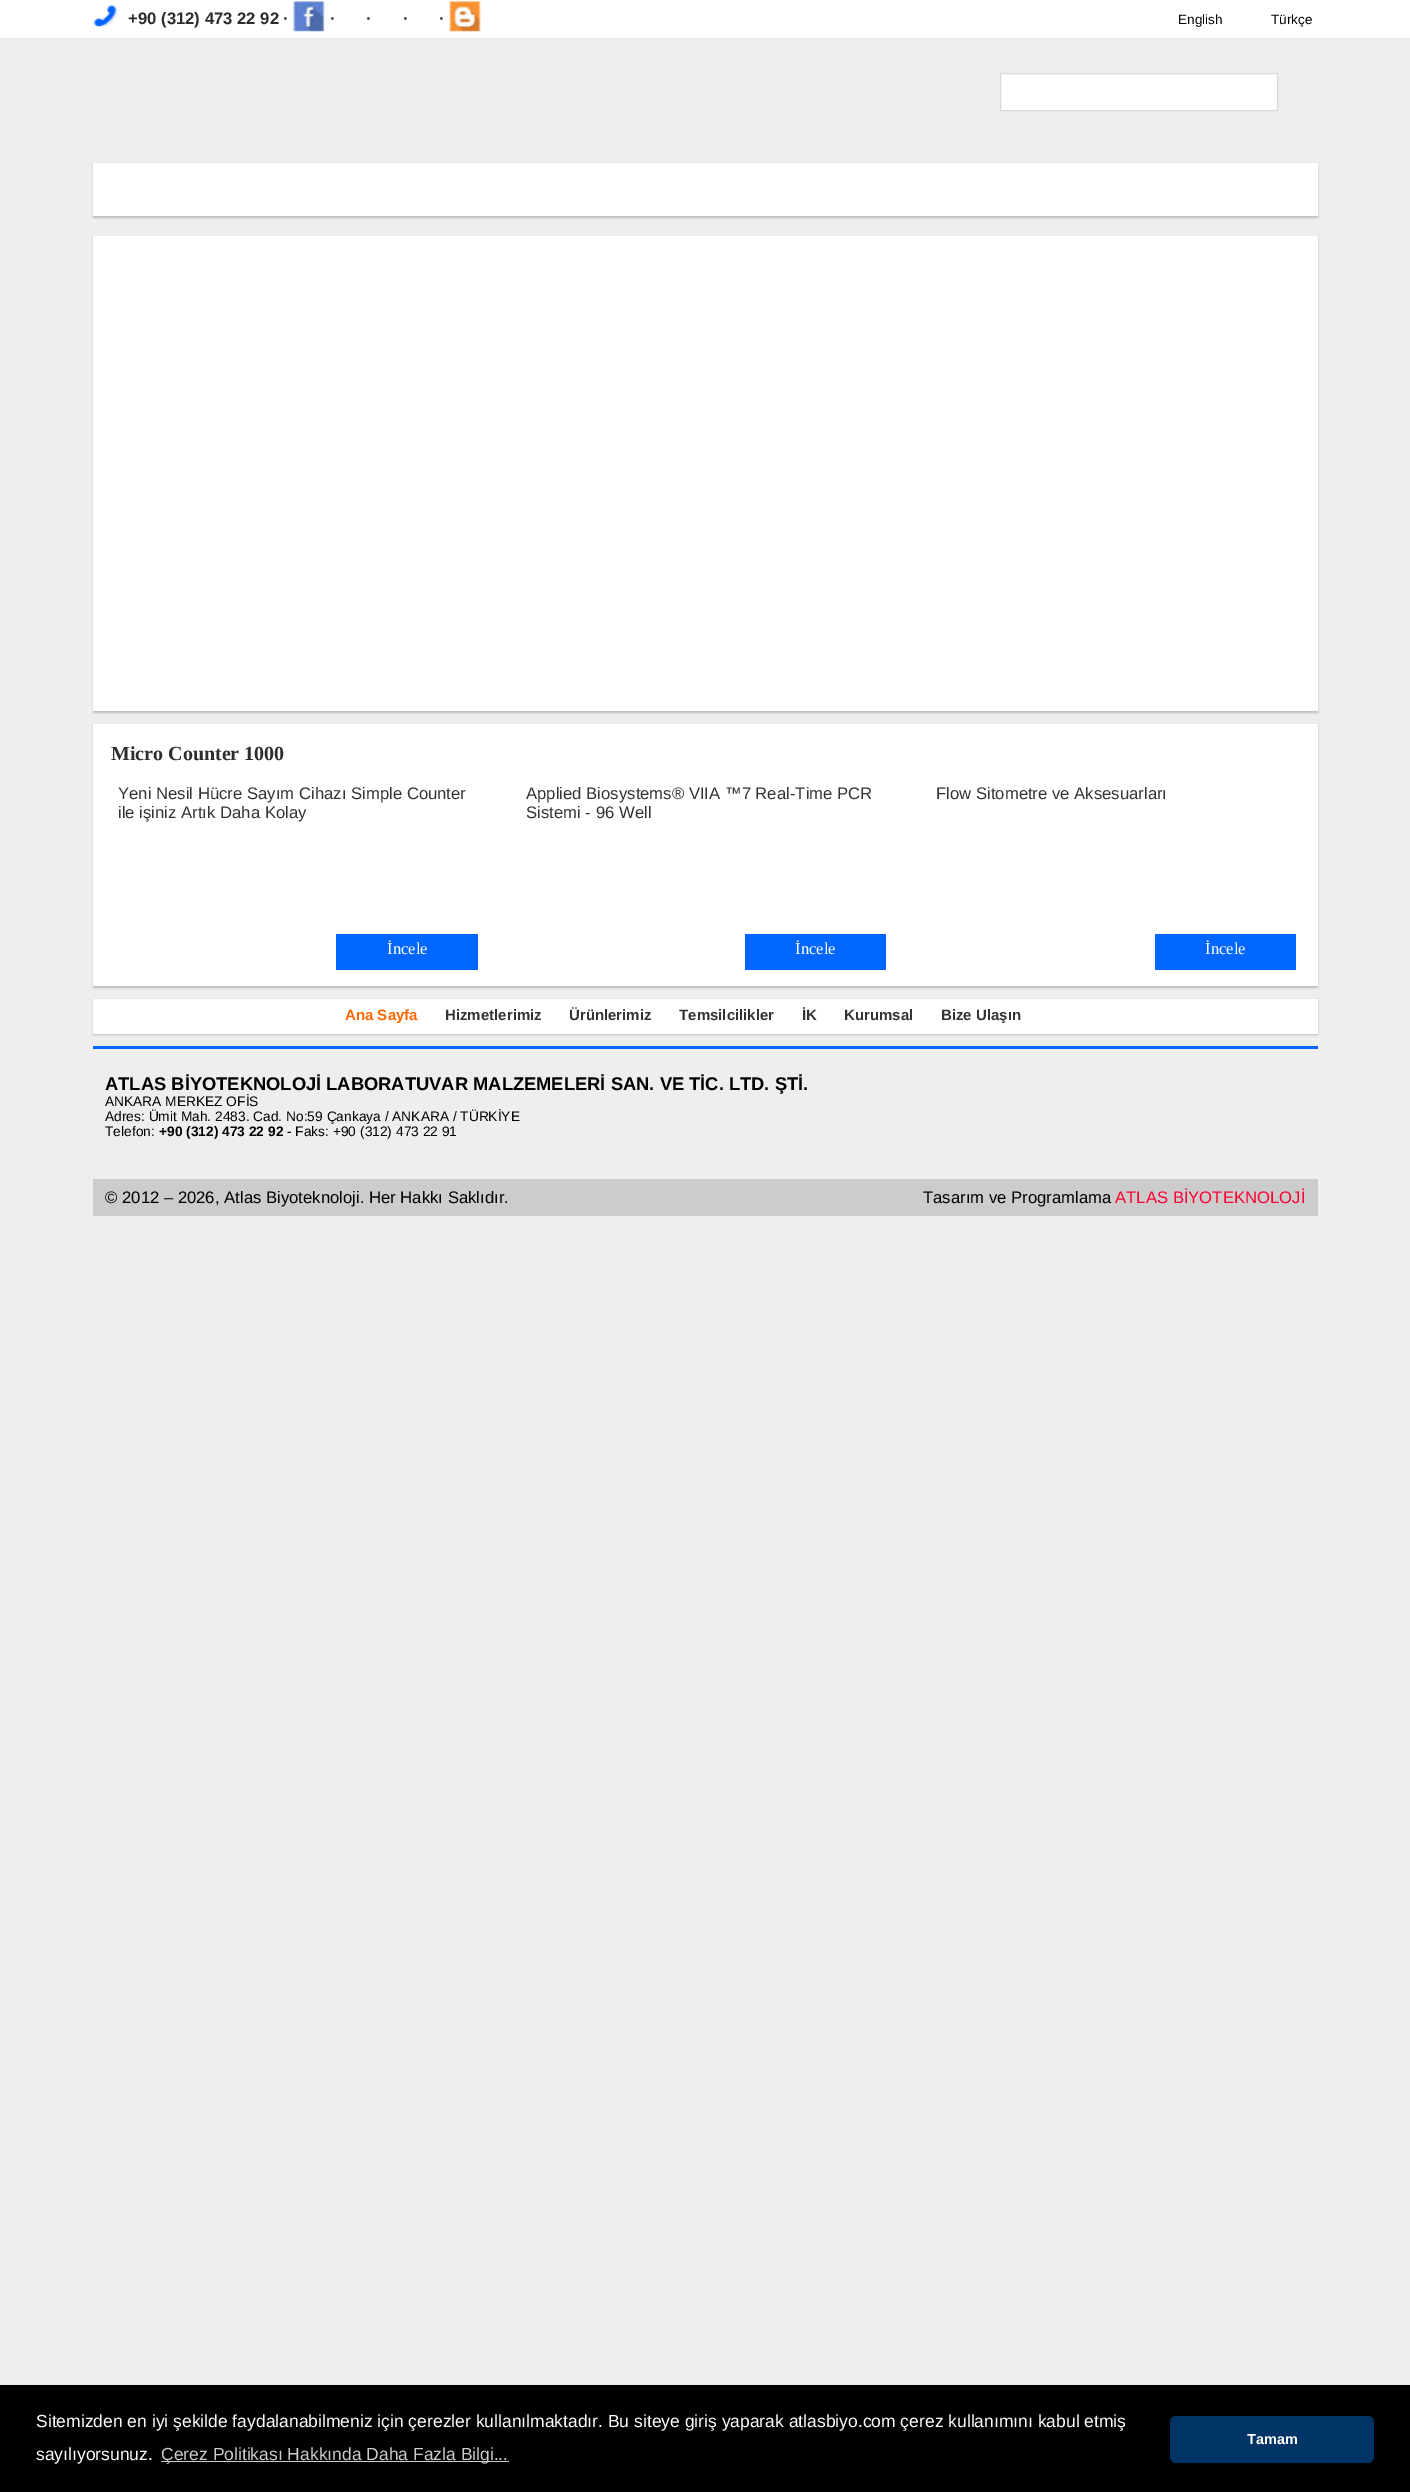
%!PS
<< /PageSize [1410 2492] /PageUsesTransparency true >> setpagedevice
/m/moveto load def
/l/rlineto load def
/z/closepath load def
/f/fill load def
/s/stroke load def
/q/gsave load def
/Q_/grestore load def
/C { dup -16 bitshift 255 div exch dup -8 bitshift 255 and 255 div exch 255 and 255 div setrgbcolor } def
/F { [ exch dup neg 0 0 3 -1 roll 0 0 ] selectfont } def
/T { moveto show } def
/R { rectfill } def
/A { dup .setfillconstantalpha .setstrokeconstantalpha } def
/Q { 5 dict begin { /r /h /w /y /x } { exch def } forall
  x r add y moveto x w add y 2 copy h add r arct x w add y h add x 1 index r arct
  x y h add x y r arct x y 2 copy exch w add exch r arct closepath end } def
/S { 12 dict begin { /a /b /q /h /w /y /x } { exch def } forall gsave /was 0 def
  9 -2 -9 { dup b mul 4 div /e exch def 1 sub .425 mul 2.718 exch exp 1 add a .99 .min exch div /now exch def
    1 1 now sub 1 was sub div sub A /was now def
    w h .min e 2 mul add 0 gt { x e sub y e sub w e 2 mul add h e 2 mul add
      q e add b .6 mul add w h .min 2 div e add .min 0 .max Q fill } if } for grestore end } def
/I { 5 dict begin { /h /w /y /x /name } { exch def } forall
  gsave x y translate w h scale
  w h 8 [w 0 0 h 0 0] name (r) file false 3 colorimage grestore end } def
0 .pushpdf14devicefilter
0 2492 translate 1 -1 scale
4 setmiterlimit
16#EEEEEE C
0 0 1410 2492 R
16#D9D9D9 C
0 0 1410 38 0 1 1 S
16#FFFFFF C
0 0 1410 38 R
(1.rgb) 93 5 25 22 I
/LiberationSans-Bold 16.7 F
16#2D2D2D C
(+90 \(312\) 473 22 92 ·) 128 24 T
(2.rgb) 293 1 32 31 I
(·) 330 24 T
(·) 366 24 T
(·) 403 24 T
(·) 439 24 T
(3.rgb) 449 1 32 31 I
/LiberationSans-Regular 13.5 F
16#000000 C
(English) 1178 24 T
(Türkçe) 1271 24 T
16#FFFFFF C
1000.5 73.5 m 277 0 l 0 37 l -277 0 l z q f Q_
16#DADADA C
s
16#BDBDBD C
93 164 1225 54 0 1 1 S
16#FFFFFF C
93 163 1225 53 R
16#BDBDBD C
93 238 1225 475 0 1 1 S
16#FFFFFF C
93 236 1225 475 R
16#BDBDBD C
93 725 1225 263 0 1 1 S
16#FFFFFF C
93 724 1225 262 R
/LiberationSerif-Bold 20 F
16#2D2D2D C
(Micro Counter 1000) 111 760 T
/LiberationSans-Regular 16.7 F
16#333333 C
(Yeni Nesil Hücre Sayım Cihazı Simple Counter) 118 799 T
(ile işiniz Artık Daha Kolay) 118 818 T
16#0066FF C
336 934 142 36 R
/LiberationSerif-Regular 16.7 F
16#FFFFFF C
(İncele) 387 954 T
/LiberationSans-Regular 16.7 F
16#333333 C
(Applied Biosystems® VIIA ™7 Real-Time PCR) 526 799 T
(Sistemi - 96 Well) 526 818 T
16#0066FF C
745 934 141 36 R
/LiberationSerif-Regular 16.7 F
16#FFFFFF C
(İncele) 795 954 T
/LiberationSans-Regular 16.7 F
16#333333 C
(Flow Sitometre ve Aksesuarları) 936 799 T
16#0066FF C
1155 934 141 36 R
/LiberationSerif-Regular 16.7 F
16#FFFFFF C
(İncele) 1205 954 T
16#BDBDBD C
93 1000 1225 35 0 1 1 S
16#FFFFFF C
93 999 1225 35 R
/LiberationSans-Bold 15 F
16#FF6600 C
(Ana Sayfa) 345 1020 T
16#333333 C
(Hizmetlerimiz) 445 1020 T
(Ürünlerimiz) 569 1020 T
(Temsilcilikler) 679 1020 T
(İK) 802 1020 T
(Kurumsal) 844 1020 T
(Bize Ulaşın) 941 1020 T
16#0066FF C
93 1046 1225 3 R
/LiberationSans-Bold 18.35 F
16#000000 C
(ATLAS BİYOTEKNOLOJİ LABORATUVAR MALZEMELERİ SAN. VE TİC. LTD. ŞTİ.) 105 1090 T
/LiberationSans-Regular 13.75 F
(ANKARA MERKEZ OFİS) 105 1106 T
(Adres: Ümit Mah. 2483. Cad. No:59 Çankaya / ANKARA / TÜRKİYE) 105 1121 T
(Telefon:) 105 1136 T
/LiberationSans-Bold 13.75 F
(+90 \(312\) 473 22 92) 159 1136 T
/LiberationSans-Regular 13.75 F
(- Faks: +90 \(312\) 473 22 91) 287 1136 T
16#CCCCCC C
93 1179 1225 37 R
/LiberationSans-Regular 16.7 F
16#000000 C
(© 2012 – 2026, Atlas Biyoteknoloji. Her Hakkı Saklıdır.) 105 1203 T
(Tasarım ve Programlama) 923 1203 T
16#FF0033 C
(ATLAS BİYOTEKNOLOJİ) 1115 1203 T
16#000000 C
0 2385 1410 107 R
/LiberationSans-Regular 17.5 F
16#FFFFFF C
(Sitemizden en iyi şekilde faydalanabilmeniz için çerezler kullanılmaktadır. Bu siteye giriş yaparak atlasbiyo.com çerez kullanımını kabul etmiş) 36 2427 T
(sayılıyorsunuz.) 36 2460 T
16#CCCCCC C
161 2461 348 1 R
(Çerez Politikası Hakkında Daha Fazla Bilgi...) 161 2460 T
16#003366 C
1170 2416 204 47 6 Q f
/LiberationSans-Bold 14.5 F
16#FFFFFF C
(Tamam) 1247 2444 T
.poppdf14devicefilter showpage
